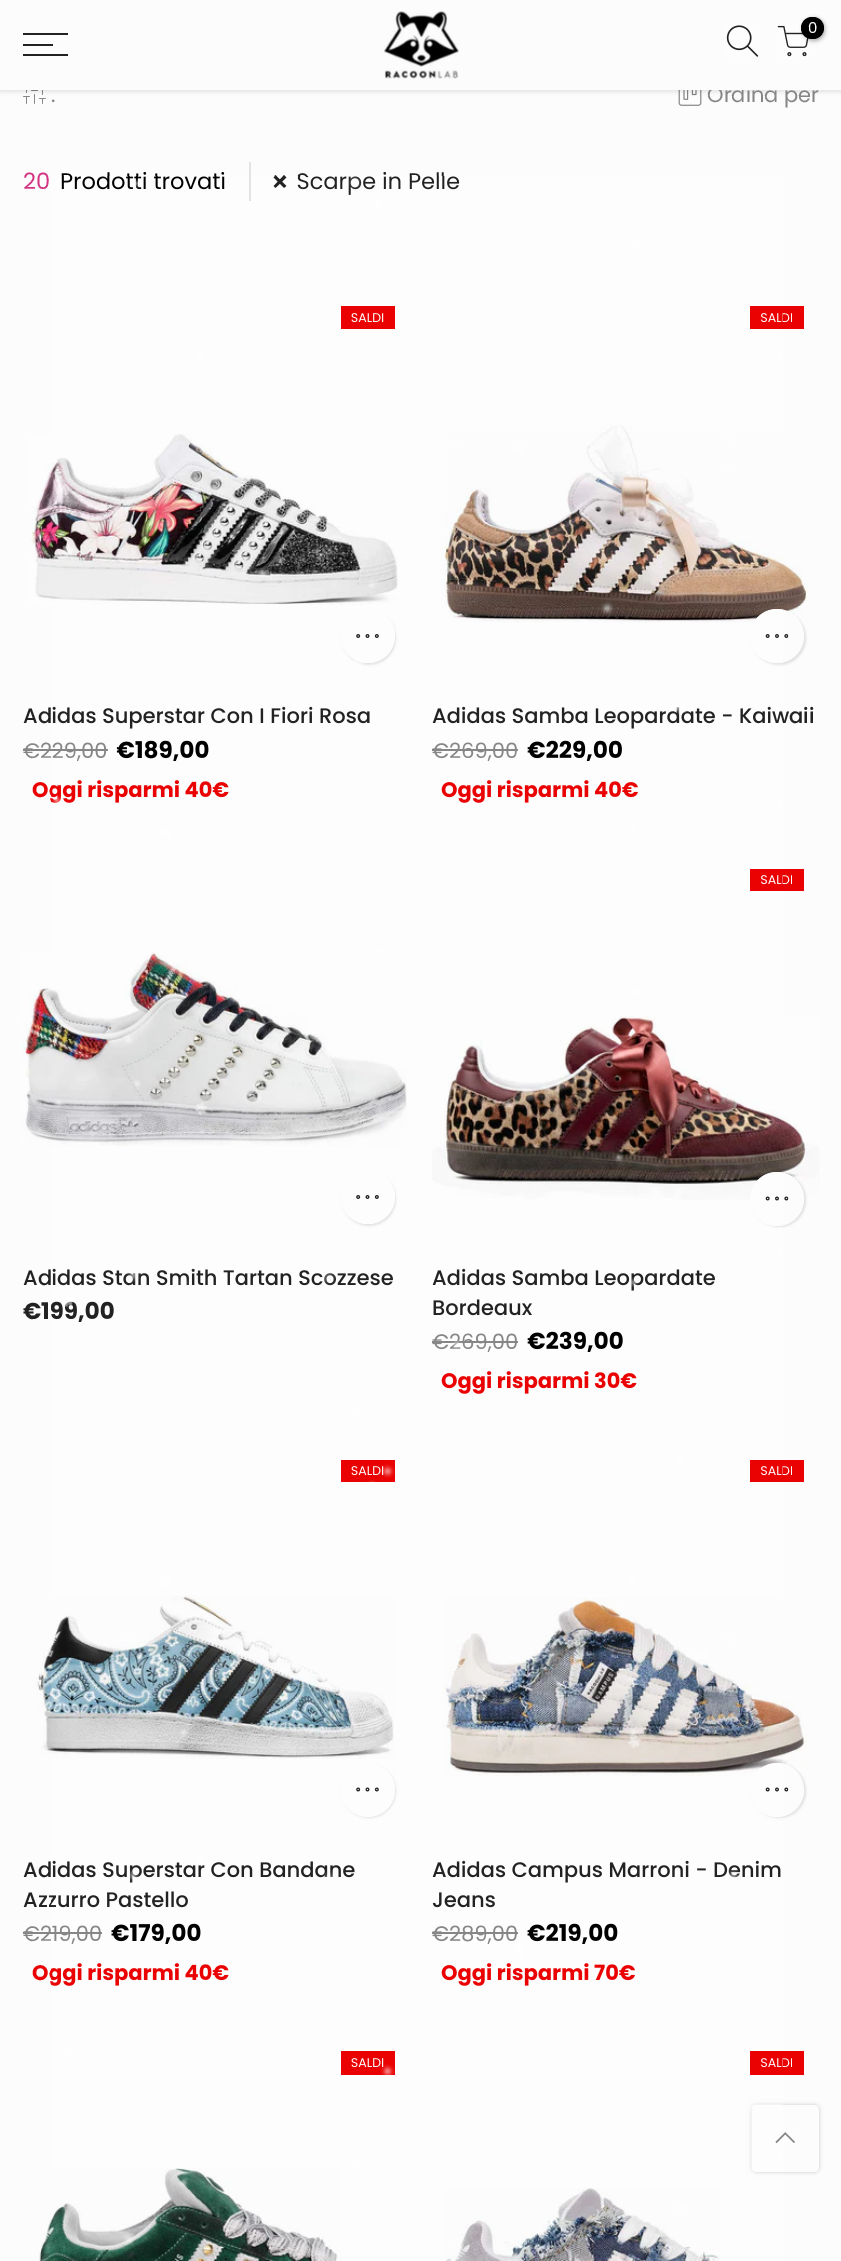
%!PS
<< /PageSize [841 2261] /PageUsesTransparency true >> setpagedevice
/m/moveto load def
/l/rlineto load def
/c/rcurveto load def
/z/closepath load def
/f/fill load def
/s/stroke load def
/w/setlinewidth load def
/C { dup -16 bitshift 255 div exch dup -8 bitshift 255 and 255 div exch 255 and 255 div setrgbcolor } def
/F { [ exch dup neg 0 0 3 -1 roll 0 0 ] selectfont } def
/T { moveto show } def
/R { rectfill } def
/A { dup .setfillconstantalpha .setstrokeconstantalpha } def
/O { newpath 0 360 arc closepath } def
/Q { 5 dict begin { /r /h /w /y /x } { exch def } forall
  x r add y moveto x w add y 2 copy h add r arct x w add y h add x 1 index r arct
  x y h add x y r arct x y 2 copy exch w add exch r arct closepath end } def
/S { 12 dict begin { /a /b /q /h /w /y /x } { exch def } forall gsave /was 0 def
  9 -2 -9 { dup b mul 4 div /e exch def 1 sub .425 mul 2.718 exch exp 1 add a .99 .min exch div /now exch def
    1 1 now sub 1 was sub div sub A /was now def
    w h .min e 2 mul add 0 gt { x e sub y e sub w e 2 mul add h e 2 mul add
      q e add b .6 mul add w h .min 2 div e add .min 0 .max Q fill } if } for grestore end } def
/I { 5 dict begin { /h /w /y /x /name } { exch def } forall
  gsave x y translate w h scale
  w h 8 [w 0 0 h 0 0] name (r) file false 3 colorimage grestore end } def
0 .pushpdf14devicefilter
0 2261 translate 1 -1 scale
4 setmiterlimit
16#FCFCFC C
0 0 841 2261 R
(4.rgb) 23 90 23 14 I
(5.rgb) 678 90 24 16 I
16#000000 C
0 2 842 90 0 2 .1 S
/Poppins-Regular 21 F
16#868686 C
(Ordina per) 707 102 T
16#FCFCFC C
0 0 841 90 R
(1.rgb) 383 11 76 68 I
(2.rgb) 726 25 33 32 I
(3.rgb) 777 25 32 32 I
16#000000 C
803 18 22 23 11 2 .3 S
801 17 23 22 11 Q f
/Poppins-Regular 15 F
16#FCFCFC C
(0) 808 33 T
16#222222 C
23 33 45 2 R
23 44 30 2 R
23 54 45 2 R
/Poppins-Regular 21 F
16#868686 C
(.) 51 102 T
16#E3E3E3 C
249 162 2 39 R
/Poppins-Regular 22.5 F
16#D33484 C
(20) 23 189 T
16#000000 C
(Prodotti trovati) 60 189 T
16#222222 C
275.5 175 m 11 11 l -2.5 2 l -10.5 -10.5 l z f
(Scarpe in Pelle) 296 189 T
273.5 186 m 10.5 -11 l 2.5 2.5 l -11 10.5 l z f
16#EA0101 C
341 306 54 23 R
/Poppins-Regular 12.5 F
16#FCFCFC C
(SALDI) 351 322 T
(6.rgb) 30 434 368 171 I
16#000000 C
342 611 54 54 27 1 .1 S
16#FCFCFC C
368 636 27 O f
(7.rgb) 356 634 23 4 I
/Poppins-Medium 21 F
16#222222 C
(Adidas Superstar Con I Fiori Rosa) 23 723 T
/Poppins-Regular 21 F
16#868686 C
(€229,00) 23 758 T
23 749 85 2 R
/Poppins-Bold 23 F
16#000000 C
(€189,00) 116 758 T
/Poppins-Bold 21 F
16#EA0101 C
(Oggi risparmi 40€) 32 797 T
750 306 54 23 R
/Poppins-Regular 12.5 F
16#FCFCFC C
(SALDI) 760 322 T
(8.rgb) 441 425 367 198 I
16#000000 C
752 611 54 54 27 1 .1 S
16#FCFCFC C
777 636 27 O f
(9.rgb) 765 634 24 4 I
1.5 w
768 627 m 2.5 -2.5 5.5 -4 9 -4 c 15 0 17.5 22.5 2.5 25.5 c -4 1 -8.5 -.5 -11.5 -3.5 c s
/Poppins-Medium 21 F
16#222222 C
(Adidas Samba Leopardate - Kaiwaii) 432 723 T
/Poppins-Regular 21 F
16#868686 C
(€269,00) 432 758 T
432 749 86 2 R
/Poppins-Bold 23 F
16#000000 C
(€229,00) 527 758 T
/Poppins-Bold 21 F
16#EA0101 C
(Oggi risparmi 40€) 441 797 T
(10.rgb) 22 952 385 194 I
16#000000 C
342 1172 54 54 27 1 .1 S
16#FCFCFC C
368 1197 27 O f
(7.rgb) 356 1195 23 4 I
/Poppins-Medium 21 F
16#222222 C
(Adidas Stan Smith Tartan Scozzese) 23 1285 T
/Poppins-Bold 23 F
(€199,00) 23 1319 T
16#EA0101 C
750 869 54 22 R
/Poppins-Regular 12.5 F
16#FCFCFC C
(SALDI) 760 884 T
(11.rgb) 432 1016 387 184 I
16#000000 C
752 1173 54 54 27 1 .1 S
16#FCFCFC C
777 1199 27 O f
(12.rgb) 765 1196 24 5 I
768 1189.5 m 2.5 -2.5 5.5 -4 9 -3.5 c 15 0 17.5 22 2.5 25 c -4 1 -8.5 -.5 -11.5 -3.5 c s
/Poppins-Medium 21 F
16#222222 C
(Adidas Samba Leopardate) 432 1285 T
(Bordeaux) 432 1315 T
/Poppins-Regular 21 F
16#868686 C
(€269,00) 432 1349 T
432 1341 86 2 R
/Poppins-Bold 23 F
16#000000 C
(€239,00) 527 1349 T
/Poppins-Bold 21 F
16#EA0101 C
(Oggi risparmi 30€) 441 1388 T
341 1460 54 22 R
/Poppins-Regular 12.5 F
16#FCFCFC C
(SALDI) 351 1475 T
(13.rgb) 35 1595 359 164 I
16#000000 C
342 1764 54 54 27 1 .1 S
16#FCFCFC C
368 1790 27 O f
(14.rgb) 356 1787 23 5 I
/Poppins-Medium 21 F
16#222222 C
(Adidas Superstar Con Bandane) 23 1877 T
(Azzurro Pastello) 23 1907 T
/Poppins-Regular 21 F
16#868686 C
(€219,00) 23 1941 T
23 1932 79 2 R
/Poppins-Bold 23 F
16#000000 C
(€179,00) 111 1941 T
/Poppins-Bold 21 F
16#EA0101 C
(Oggi risparmi 40€) 32 1980 T
750 1460 54 22 R
/Poppins-Regular 12.5 F
16#FCFCFC C
(SALDI) 760 1475 T
(15.rgb) 442 1598 365 178 I
16#000000 C
752 1764 54 54 27 1 .1 S
16#FCFCFC C
777 1790 27 O f
(12.rgb) 765 1787 24 5 I
768 1780.5 m 3 -3 7.5 -4.5 11.5 -3.5 c 15 3 12.5 25.5 -2.5 25 c -3.5 0 -6.5 -1 -9 -3.5 c s
/Poppins-Medium 21 F
16#222222 C
(Adidas Campus Marroni - Denim) 432 1877 T
(Jeans) 432 1907 T
/Poppins-Regular 21 F
16#868686 C
(€289,00) 432 1941 T
432 1932 86 2 R
/Poppins-Bold 23 F
16#000000 C
(€219,00) 527 1941 T
/Poppins-Bold 21 F
16#EA0101 C
(Oggi risparmi 70€) 441 1980 T
341 2051 54 24 R
/Poppins-Regular 12.5 F
16#FCFCFC C
(SALDI) 351 2067 T
(16.rgb) 39 2167 303 94 I
16#EA0101 C
750 2051 54 24 R
16#FCFCFC C
(SALDI) 760 2067 T
(17.rgb) 446 2188 274 73 I
16#000000 C
752 2105 67 67 5 2 .2 S
16#FCFCFC C
752 2105 67 67 5 Q f
(19.rgb) 775 2132 20 12 I
(18.rgb) 51 176 732 2085 I
.poppdf14devicefilter showpage
